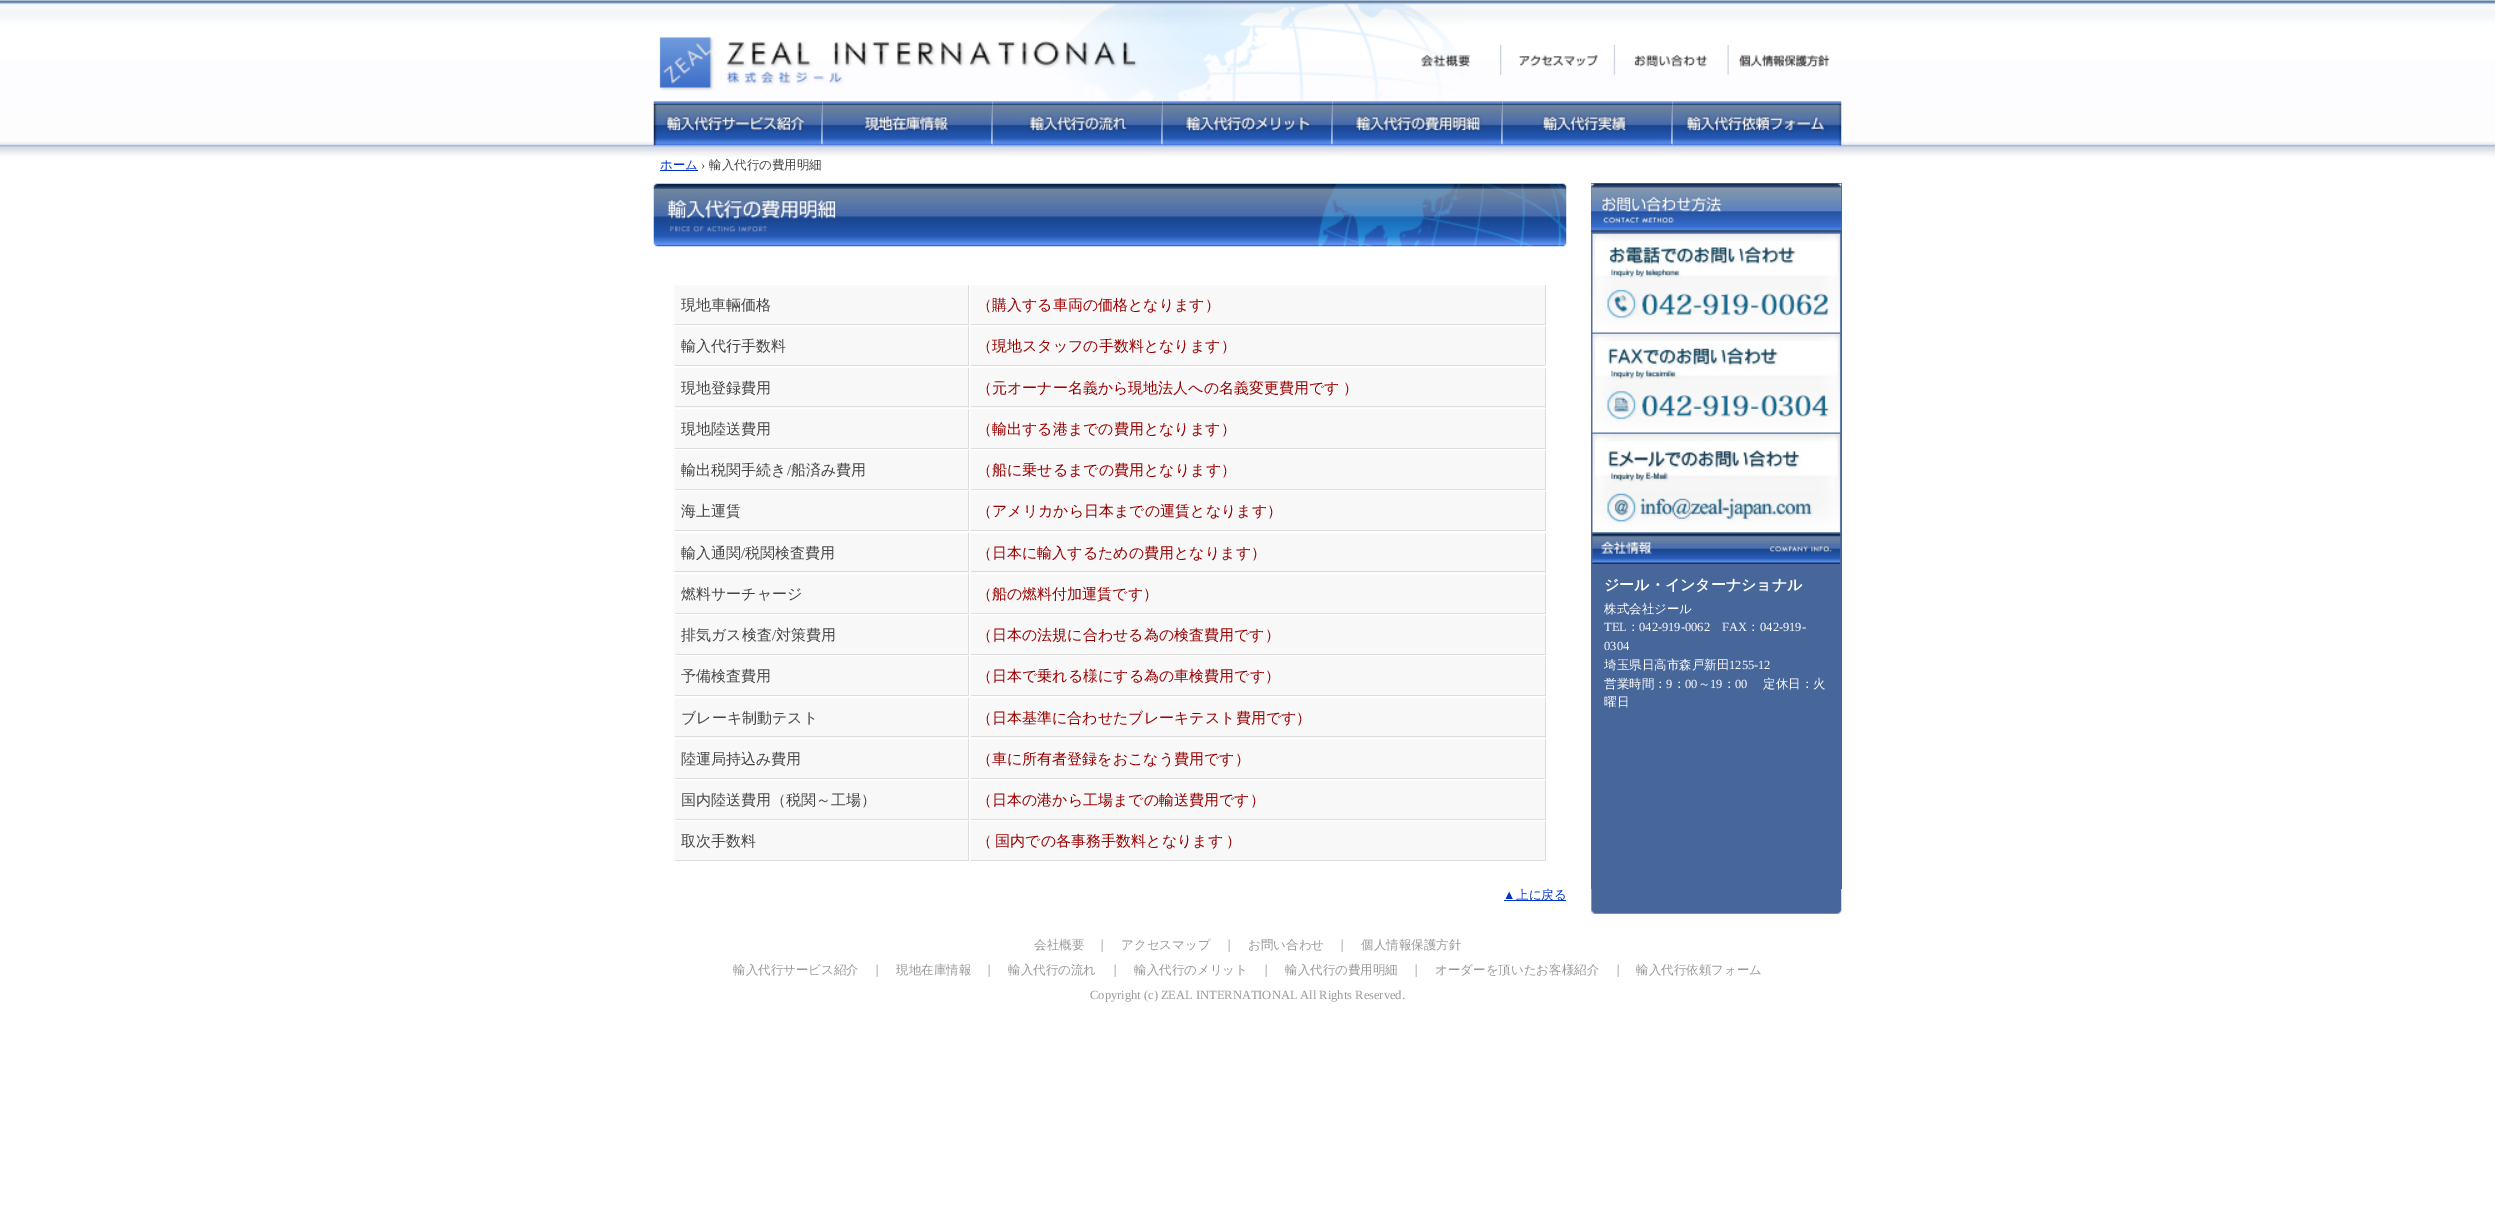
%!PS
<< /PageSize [2495 1230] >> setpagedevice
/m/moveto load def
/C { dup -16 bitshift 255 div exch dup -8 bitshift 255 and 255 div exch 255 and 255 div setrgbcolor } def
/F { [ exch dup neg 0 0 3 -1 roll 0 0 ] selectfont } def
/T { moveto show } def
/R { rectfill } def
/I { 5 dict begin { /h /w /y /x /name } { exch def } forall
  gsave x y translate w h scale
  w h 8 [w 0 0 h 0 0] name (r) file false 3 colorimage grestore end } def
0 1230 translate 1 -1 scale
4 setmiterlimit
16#FFFFFF C
0 0 2495 1230 R
(1.rgb) 0 0 2495 157 I
(2.rgb) 1061 3 403 99 I
(3.rgb) 659 36 479 55 I
(4.rgb) 1421 54 50 13 I
(5.rgb) 1500 45 98 31 I
(6.rgb) 1613 45 95 31 I
(7.rgb) 1727 45 103 30 I
(8.rgb) 653 101 170 46 I
(9.rgb) 822 101 171 46 I
(10.rgb) 992 101 171 46 I
(11.rgb) 1162 101 171 46 I
(12.rgb) 1332 101 171 46 I
(13.rgb) 1502 101 171 46 I
(14.rgb) 1672 101 170 46 I
16#0033CC C
660 170 38 1 R
/WenQuanYiZenHei-Medium 12.5 F
(ホーム) 660 169 T
/LiberationSerif-Regular 12.5 F
16#454545 C
(›) 701 169 T
/WenQuanYiZenHei-Medium 12.5 F
(輸入代行の費用明細) 709 169 T
16#47679A C
1591 183 251 706 R
(15.rgb) 653 183 914 64 I
16#F8F8F8 C
675 286 293 38 R
16#FAFAFA C
674 285 295 1 R
16#DDDDDD C
968 285 1 40 R
674 324 295 1 R
16#FAFAFA C
674 285 1 40 R
/WenQuanYiZenHei-Medium 15 F
16#454545 C
(現地車輛価格) 681 310 T
16#F8F8F8 C
971 286 574 38 R
16#FAFAFA C
970 285 576 1 R
16#DDDDDD C
1545 285 1 40 R
970 324 576 1 R
16#FAFAFA C
970 285 1 40 R
16#990000 C
(（購入する車両の価格となります）) 977 310 T
16#F8F8F8 C
675 327 293 38 R
16#FAFAFA C
674 326 295 1 R
16#DDDDDD C
968 326 1 40 R
674 365 295 1 R
16#FAFAFA C
674 326 1 40 R
16#454545 C
(輸入代行手数料) 681 351 T
16#F8F8F8 C
971 327 574 38 R
16#FAFAFA C
970 326 576 1 R
16#DDDDDD C
1545 326 1 40 R
970 365 576 1 R
16#FAFAFA C
970 326 1 40 R
16#990000 C
(（現地スタッフの手数料となります）) 977 351 T
16#F8F8F8 C
675 369 293 39 R
16#FAFAFA C
674 368 295 1 R
16#DDDDDD C
968 368 1 40 R
674 406 295 1 R
16#FAFAFA C
674 368 1 40 R
16#454545 C
(現地登録費用) 681 393 T
16#F8F8F8 C
971 369 574 39 R
16#FAFAFA C
970 368 576 1 R
16#DDDDDD C
1545 368 1 40 R
970 406 576 1 R
16#FAFAFA C
970 368 1 40 R
16#990000 C
977 393 m -1 0 32 (（元オーナー名義から現地法人への名義変更費用です ）) widthshow
16#F8F8F8 C
675 410 293 38 R
16#FAFAFA C
674 409 295 1 R
16#DDDDDD C
968 409 1 40 R
674 448 295 1 R
16#FAFAFA C
674 409 1 40 R
16#454545 C
(現地陸送費用) 681 434 T
16#F8F8F8 C
971 410 574 38 R
16#FAFAFA C
970 409 576 1 R
16#DDDDDD C
1545 409 1 40 R
970 448 576 1 R
16#FAFAFA C
970 409 1 40 R
16#990000 C
(（輸出する港までの費用となります）) 977 434 T
16#F8F8F8 C
675 451 293 38 R
16#FAFAFA C
674 450 295 1 R
16#DDDDDD C
968 450 1 40 R
674 489 295 1 R
16#FAFAFA C
674 450 1 40 R
16#454545 C
(輸出税関手続き) 681 475 T
/LiberationSerif-Regular 15 F
(/) 787 475 T
/WenQuanYiZenHei-Medium 15 F
(船済み費用) 791 475 T
16#F8F8F8 C
971 451 574 38 R
16#FAFAFA C
970 450 576 1 R
16#DDDDDD C
1545 450 1 40 R
970 489 576 1 R
16#FAFAFA C
970 450 1 40 R
16#990000 C
(（船に乗せるまでの費用となります）) 977 475 T
16#F8F8F8 C
675 492 293 38 R
16#FAFAFA C
674 491 295 1 R
16#DDDDDD C
968 491 1 40 R
674 530 295 1 R
16#FAFAFA C
674 491 1 40 R
16#454545 C
(海上運賃) 681 516 T
16#F8F8F8 C
971 492 574 38 R
16#FAFAFA C
970 491 576 1 R
16#DDDDDD C
1545 491 1 40 R
970 530 576 1 R
16#FAFAFA C
970 491 1 40 R
16#990000 C
(（アメリカから日本までの運賃となります）) 977 516 T
16#F8F8F8 C
675 534 293 39 R
16#FAFAFA C
674 533 295 1 R
16#DDDDDD C
968 533 1 40 R
674 571 295 1 R
16#FAFAFA C
674 533 1 40 R
16#454545 C
(輸入通関) 681 558 T
/LiberationSerif-Regular 15 F
(/) 741 558 T
/WenQuanYiZenHei-Medium 15 F
(税関検査費用) 745 558 T
16#F8F8F8 C
971 534 574 39 R
16#FAFAFA C
970 533 576 1 R
16#DDDDDD C
1545 533 1 40 R
970 571 576 1 R
16#FAFAFA C
970 533 1 40 R
16#990000 C
(（日本に輸入するための費用となります）) 977 558 T
16#F8F8F8 C
675 575 293 38 R
16#FAFAFA C
674 574 295 1 R
16#DDDDDD C
968 574 1 40 R
674 613 295 1 R
16#FAFAFA C
674 574 1 40 R
16#454545 C
(燃料サーチャージ) 681 599 T
16#F8F8F8 C
971 575 574 38 R
16#FAFAFA C
970 574 576 1 R
16#DDDDDD C
1545 574 1 40 R
970 613 576 1 R
16#FAFAFA C
970 574 1 40 R
16#990000 C
(（船の燃料付加運賃です）) 977 599 T
16#F8F8F8 C
675 616 293 38 R
16#FAFAFA C
674 615 295 1 R
16#DDDDDD C
968 615 1 40 R
674 654 295 1 R
16#FAFAFA C
674 615 1 40 R
16#454545 C
(排気ガス検査) 681 640 T
/LiberationSerif-Regular 15 F
(/) 772 640 T
/WenQuanYiZenHei-Medium 15 F
(対策費用) 776 640 T
16#F8F8F8 C
971 616 574 38 R
16#FAFAFA C
970 615 576 1 R
16#DDDDDD C
1545 615 1 40 R
970 654 576 1 R
16#FAFAFA C
970 615 1 40 R
16#990000 C
(（日本の法規に合わせる為の検査費用です）) 977 640 T
16#F8F8F8 C
675 657 293 38 R
16#FAFAFA C
674 656 295 1 R
16#DDDDDD C
968 656 1 40 R
674 695 295 1 R
16#FAFAFA C
674 656 1 40 R
16#454545 C
(予備検査費用) 681 681 T
16#F8F8F8 C
971 657 574 38 R
16#FAFAFA C
970 656 576 1 R
16#DDDDDD C
1545 656 1 40 R
970 695 576 1 R
16#FAFAFA C
970 656 1 40 R
16#990000 C
(（日本で乗れる様にする為の車検費用です）) 977 681 T
16#F8F8F8 C
675 699 293 39 R
16#FAFAFA C
674 698 295 1 R
16#DDDDDD C
968 698 1 40 R
674 736 295 1 R
16#FAFAFA C
674 698 1 40 R
16#454545 C
(ブレーキ制動テスト) 681 723 T
16#F8F8F8 C
971 699 574 39 R
16#FAFAFA C
970 698 576 1 R
16#DDDDDD C
1545 698 1 40 R
970 736 576 1 R
16#FAFAFA C
970 698 1 40 R
16#990000 C
(（日本基準に合わせたブレーキテスト費用です）) 977 723 T
16#F8F8F8 C
675 740 293 38 R
16#FAFAFA C
674 739 295 1 R
16#DDDDDD C
968 739 1 40 R
674 778 295 1 R
16#FAFAFA C
674 739 1 40 R
16#454545 C
(陸運局持込み費用) 681 764 T
16#F8F8F8 C
971 740 574 38 R
16#FAFAFA C
970 739 576 1 R
16#DDDDDD C
1545 739 1 40 R
970 778 576 1 R
16#FAFAFA C
970 739 1 40 R
16#990000 C
(（車に所有者登録をおこなう費用です）) 977 764 T
16#F8F8F8 C
675 781 293 38 R
16#FAFAFA C
674 780 295 1 R
16#DDDDDD C
968 780 1 40 R
674 819 295 1 R
16#FAFAFA C
674 780 1 40 R
16#454545 C
(国内陸送費用（税関～工場）) 681 805 T
16#F8F8F8 C
971 781 574 38 R
16#FAFAFA C
970 780 576 1 R
16#DDDDDD C
1545 780 1 40 R
970 819 576 1 R
16#FAFAFA C
970 780 1 40 R
16#990000 C
(（日本の港から工場までの輸送費用です）) 977 805 T
16#F8F8F8 C
675 822 293 38 R
16#FAFAFA C
674 821 295 1 R
16#DDDDDD C
968 821 1 40 R
674 860 295 1 R
16#FAFAFA C
674 821 1 40 R
16#454545 C
(取次手数料) 681 846 T
16#F8F8F8 C
971 822 574 38 R
16#FAFAFA C
970 821 576 1 R
16#DDDDDD C
1545 821 1 40 R
970 860 576 1 R
16#FAFAFA C
970 821 1 40 R
16#990000 C
977 846 m -1 0 32 (（ 国内での各事務手数料となります ）) widthshow
(16.rgb) 1591 183 251 50 I
(17.rgb) 1591 232 250 202 I
(18.rgb) 1592 433 249 100 I
(19.rgb) 1592 532 249 32 I
/WenQuanYiZenHei-Bold 15 F
16#FFFFFF C
(ジール・インターナショナル) 1604 590 T
/WenQuanYiZenHei-Medium 12.5 F
(株式会社ジール) 1604 613 T
/LiberationSerif-Regular 12.5 F
(TEL) 1604 631 T
/WenQuanYiZenHei-Medium 12.5 F
(：) 1627 631 T
/LiberationSerif-Regular 12.5 F
(042-919-0062) 1639 631 T
(FAX) 1722 631 T
/WenQuanYiZenHei-Medium 12.5 F
(：) 1747 631 T
/LiberationSerif-Regular 12.5 F
(042-919-) 1760 631 T
(0304) 1604 650 T
/WenQuanYiZenHei-Medium 12.5 F
(埼玉県日高市森戸新田) 1604 669 T
/LiberationSerif-Regular 12.5 F
(1255-12) 1729 669 T
/WenQuanYiZenHei-Medium 12.5 F
(営業時間：) 1604 688 T
/LiberationSerif-Regular 12.5 F
(9) 1666 688 T
/WenQuanYiZenHei-Medium 12.5 F
(：) 1673 688 T
/LiberationSerif-Regular 12.5 F
(00) 1685 688 T
/WenQuanYiZenHei-Medium 12.5 F
(～) 1698 688 T
/LiberationSerif-Regular 12.5 F
(19) 1710 688 T
/WenQuanYiZenHei-Medium 12.5 F
(：) 1723 688 T
/LiberationSerif-Regular 12.5 F
(00) 1735 688 T
/WenQuanYiZenHei-Medium 12.5 F
(定休日：火) 1763 688 T
(曜日) 1604 706 T
(20.rgb) 1591 888 251 26 I
/LiberationSerif-Regular 12.5 F
16#0033CC C
(▲) 1503 899 T
1504 900 62 1 R
/WenQuanYiZenHei-Medium 12.5 F
(上に戻る) 1516 899 T
16#999999 C
(会社概要) 1034 949 T
(｜) 1096 949 T
(アクセスマップ) 1121 949 T
(｜) 1223 949 T
(お問い合わせ) 1248 949 T
(｜) 1336 949 T
(個人情報保護方針) 1361 949 T
(輸入代行サービス紹介) 733 974 T
(｜) 871 974 T
(現地在庫情報) 896 974 T
(｜) 983 974 T
(輸入代行の流れ) 1008 974 T
(｜) 1109 974 T
(輸入代行のメリット) 1134 974 T
(｜) 1260 974 T
(輸入代行の費用明細) 1285 974 T
(｜) 1410 974 T
(オーダーを頂いたお客様紹介) 1435 974 T
(｜) 1612 974 T
(輸入代行依頼フォーム) 1636 974 T
/LiberationSerif-Regular 12.5 F
(Copyright \(c\) ZEAL INTERNATIONAL All Rights Reserved.) 1090 999 T
showpage
